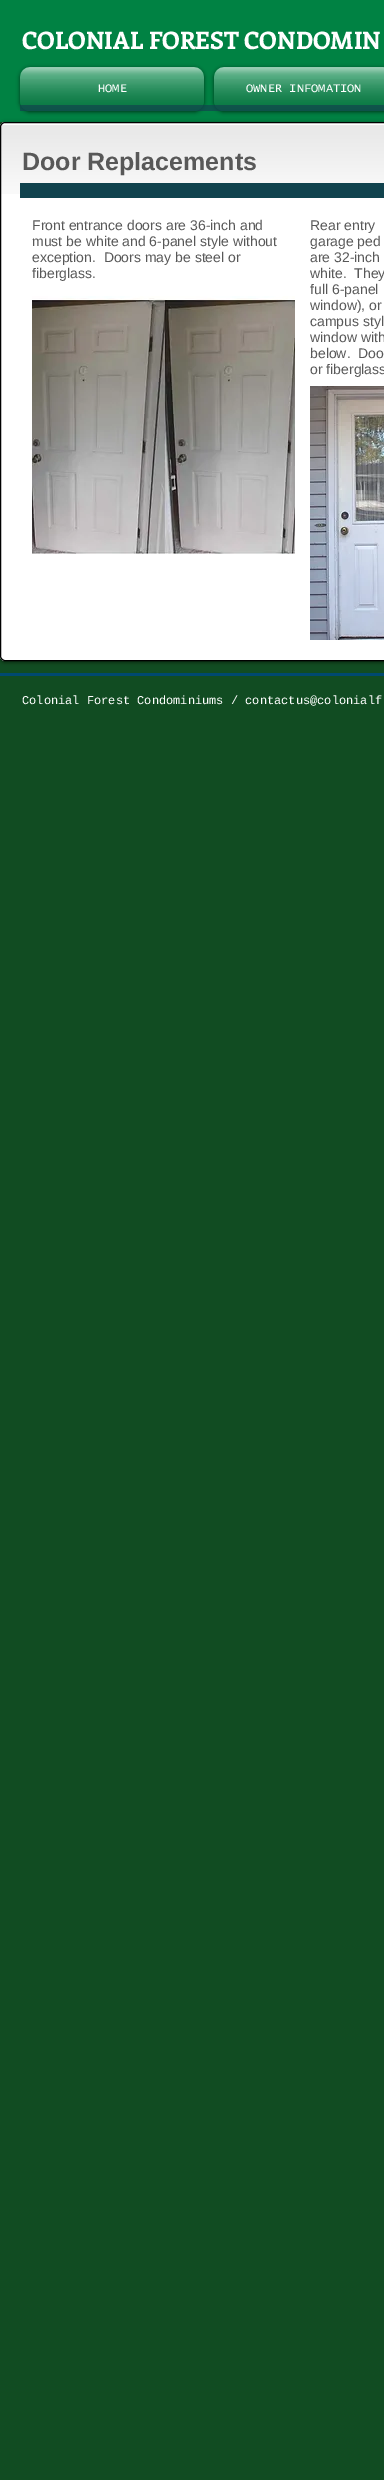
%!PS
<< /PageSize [384 2480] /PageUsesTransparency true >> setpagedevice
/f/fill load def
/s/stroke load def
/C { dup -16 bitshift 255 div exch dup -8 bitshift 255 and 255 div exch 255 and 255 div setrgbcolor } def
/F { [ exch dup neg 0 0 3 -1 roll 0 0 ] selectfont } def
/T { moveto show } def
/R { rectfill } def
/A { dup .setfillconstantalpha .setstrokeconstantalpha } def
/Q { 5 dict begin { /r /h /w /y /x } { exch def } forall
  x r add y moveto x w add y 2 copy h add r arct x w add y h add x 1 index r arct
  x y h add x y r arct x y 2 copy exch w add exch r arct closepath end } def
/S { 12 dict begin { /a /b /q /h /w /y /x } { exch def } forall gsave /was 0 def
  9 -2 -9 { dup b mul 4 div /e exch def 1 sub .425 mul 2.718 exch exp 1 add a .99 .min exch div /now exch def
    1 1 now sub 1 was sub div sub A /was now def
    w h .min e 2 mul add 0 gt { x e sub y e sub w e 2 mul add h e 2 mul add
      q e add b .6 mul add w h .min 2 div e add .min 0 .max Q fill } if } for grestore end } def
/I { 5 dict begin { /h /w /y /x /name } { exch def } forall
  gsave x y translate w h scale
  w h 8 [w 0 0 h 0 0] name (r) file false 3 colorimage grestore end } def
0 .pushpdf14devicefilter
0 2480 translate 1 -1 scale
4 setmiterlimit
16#114C22 C
0 0 384 2480 R
16#008243 C
0 0 384 122 R
/Enriqueta-Bold 24 F
16#FFFFFF C
(COLONIAL FOREST CONDOMIN) 22 49 T
16#000000 C
20 68 184 44 10 2 .6 S
16#008243 C
20 67 184 44 10 Q f
(1.rgb) 20 67 184 44 I
(2.rgb) 20 79 184 32 I
/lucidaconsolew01-Regular 12 F
16#FFFFFF C
(HOME) 98 92 T
16#000000 C
214 68 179 44 10 2 .6 S
16#008243 C
214 67 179 44 10 Q f
(3.rgb) 214 67 170 44 I
(4.rgb) 214 79 170 32 I
16#FFFFFF C
(OWNER INFOMATION) 246 92 T
0.7 A
16#11434E C
20 105 364 6 R
1 A
16#000000 C
0 123 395 539 5 2 .6 S
16#FFFFFF C
0 122 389 539 5 Q f
(5.rgb) 0 125 384 69 I
16#000000 C
.5 122.5 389 538 4.5 Q s
/LiberationSans-Bold 25 F
16#585858 C
(Door Replacements) 22 170 T
16#11434E C
20 183 364 15 R
/LiberationSans-Regular 14 F
16#585858 C
(Front entrance doors are 36-inch and) 32 230 T
(must be white and 6-panel style without) 32 246 T
(exception.  Doors may be steel or) 32 262 T
(fiberglass.) 32 278 T
(Rear entry) 310 230 T
(garage ped) 310 246 T
(are 32-inch) 310 262 T
(white.  They) 310 278 T
(full 6-panel) 310 294 T
(window\), or) 310 310 T
(campus styl) 310 326 T
(window with) 310 342 T
(below.  Doo) 310 358 T
(or fiberglass) 310 374 T
(6.rgb) 32 296 263 258 I
(7.rgb) 310 386 74 254 I
16#004970 C
0 673 384 3 R
/LiberationMono-Regular 12 F
16#FFFFFF C
(Colonial Forest Condominiums / contactus@colonialf) 22 704 T
.poppdf14devicefilter showpage
